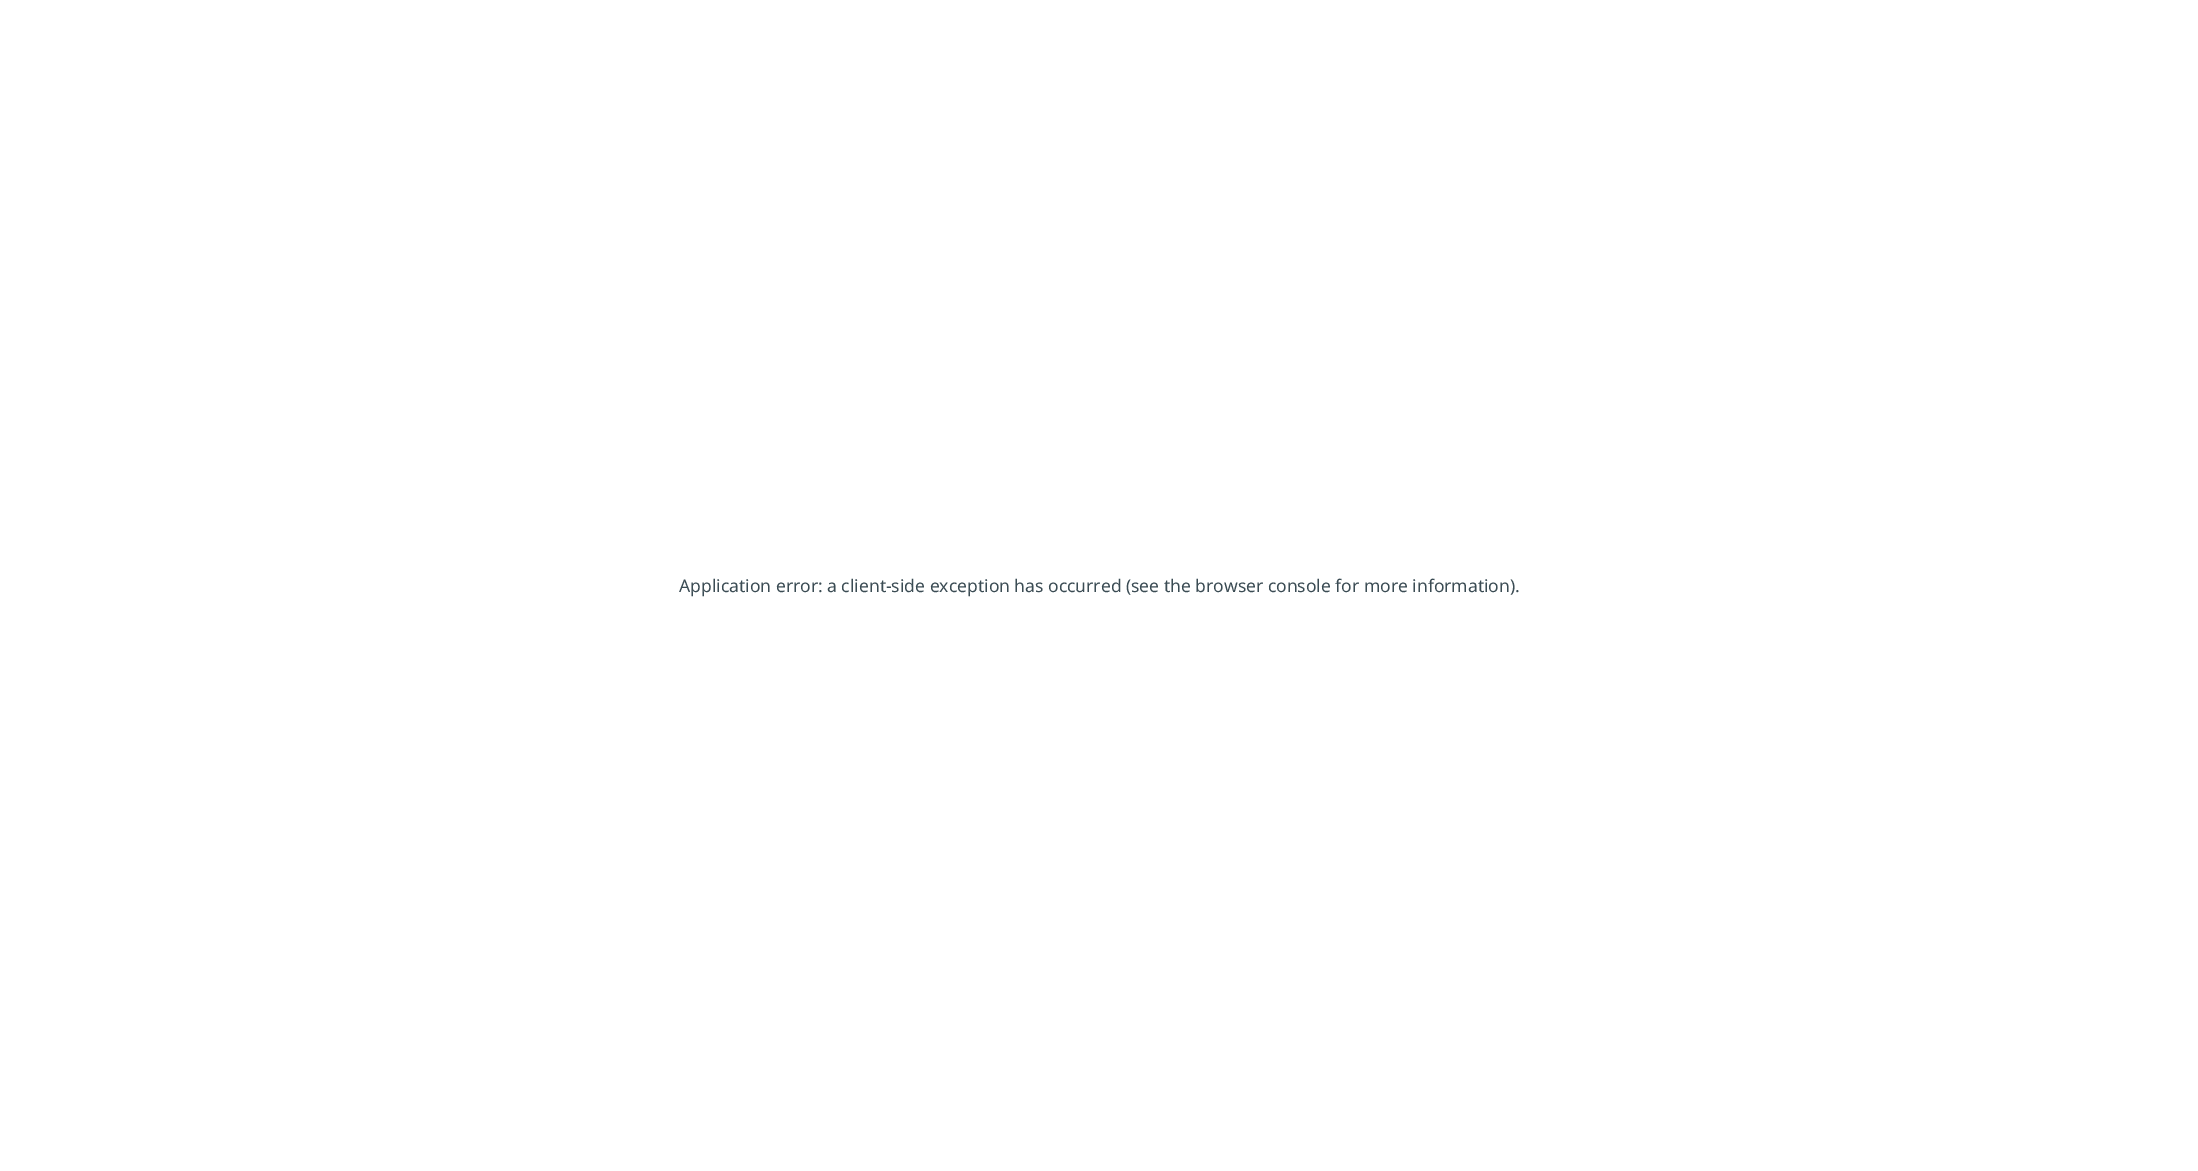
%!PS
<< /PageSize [2198 1171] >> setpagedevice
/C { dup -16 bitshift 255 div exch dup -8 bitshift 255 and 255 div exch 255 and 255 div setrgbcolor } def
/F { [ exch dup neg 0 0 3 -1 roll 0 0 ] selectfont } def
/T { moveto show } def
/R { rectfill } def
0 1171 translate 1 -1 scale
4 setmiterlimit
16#FFFFFF C
0 0 2198 1171 R
/NotoSans-Regular 17.5 F
16#3B4C54 C
(Application error: a client-side exception has occurred \(see the browser console for more information\).) 679 592 T
showpage
